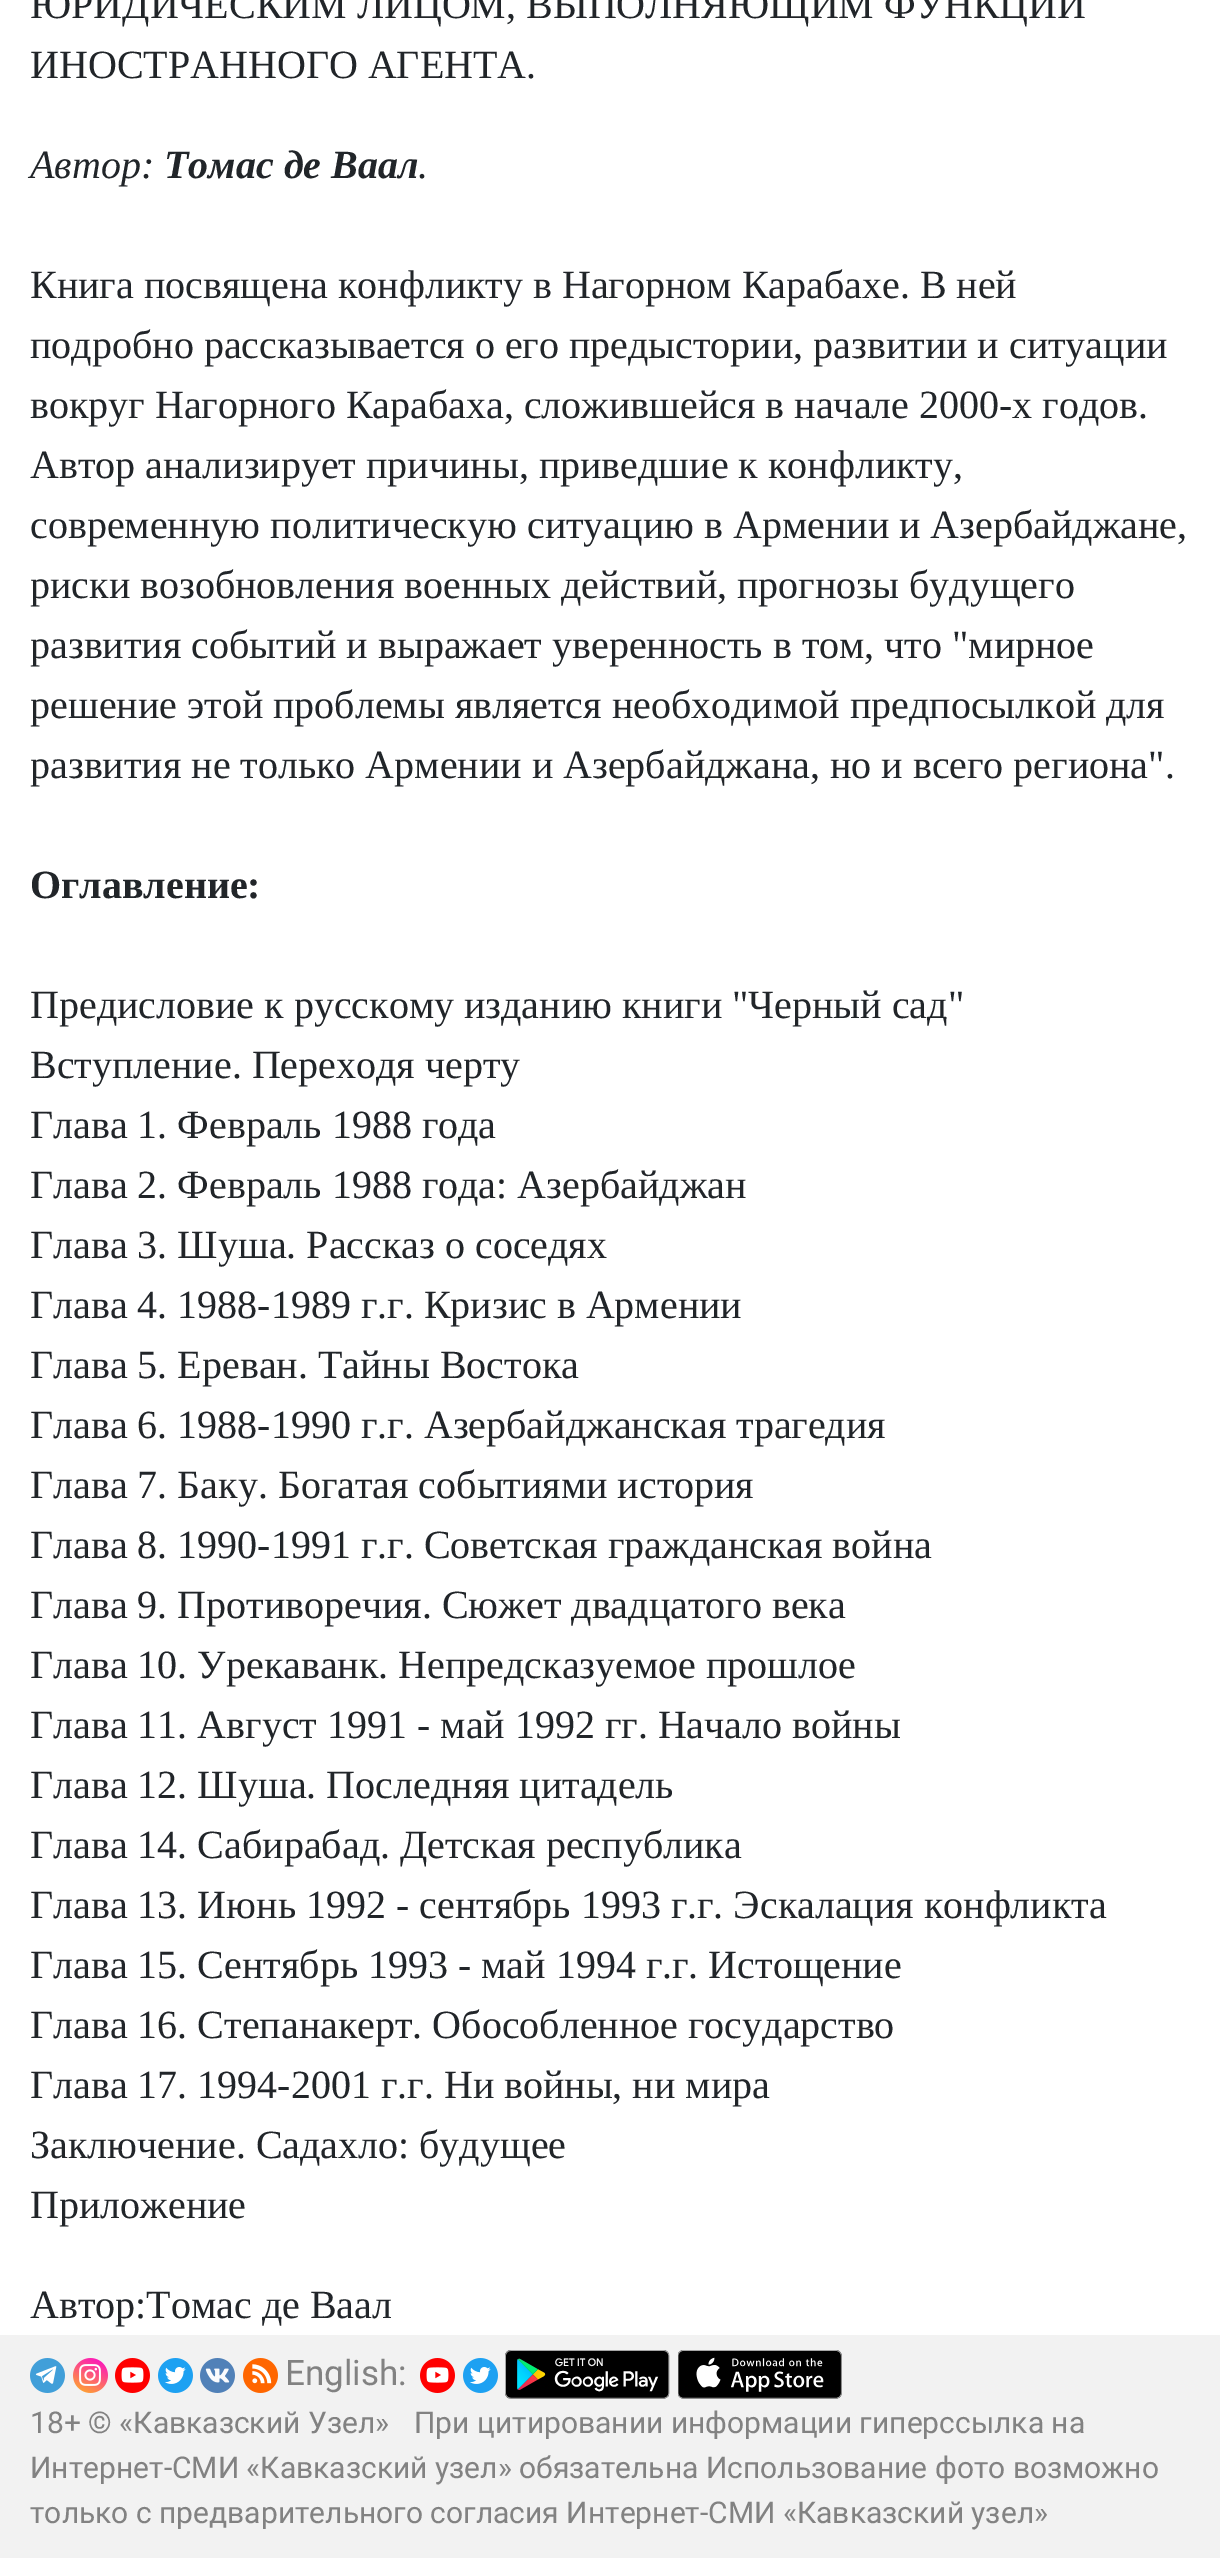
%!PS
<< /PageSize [1220 2558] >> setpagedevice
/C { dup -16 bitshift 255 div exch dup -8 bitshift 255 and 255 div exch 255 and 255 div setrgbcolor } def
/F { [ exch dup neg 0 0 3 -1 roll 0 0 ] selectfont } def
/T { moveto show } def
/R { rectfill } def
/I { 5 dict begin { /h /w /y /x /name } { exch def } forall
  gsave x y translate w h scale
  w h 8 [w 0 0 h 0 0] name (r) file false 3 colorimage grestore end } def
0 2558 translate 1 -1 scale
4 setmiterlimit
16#FFFFFF C
0 0 1220 2558 R
/LiberationSerif-Regular 40 F
16#212529 C
(ЮРИДИЧЕСКИМ ЛИЦОМ, ВЫПОЛНЯЮЩИМ ФУНКЦИИ) 30 18 T
(ИНОСТРАННОГО АГЕНТА.) 30 78 T
/LiberationSerif-Italic 40 F
(Автор:) 30 178 T
/LiberationSerif-BoldItalic 40 F
(Томас де Ваал) 164 178 T
/LiberationSerif-Italic 40 F
(.) 418 178 T
/LiberationSerif-Regular 40 F
(Книга посвящена конфликту в Нагорном Карабахе. В ней) 30 298 T
(подробно рассказывается о его предыстории, развитии и ситуации) 30 358 T
(вокруг Нагорного Карабаха, сложившейся в начале 2000-х годов.) 30 418 T
(Автор анализирует причины, приведшие к конфликту,) 30 478 T
(современную политическую ситуацию в Армении и Азербайджане,) 30 538 T
(риски возобновления военных действий, прогнозы будущего) 30 598 T
(развития событий и выражает уверенность в том, что "мирное) 30 658 T
(решение этой проблемы является необходимой предпосылкой для) 30 718 T
(развития не только Армении и Азербайджана, но и всего региона".) 30 778 T
/LiberationSerif-Bold 40 F
(Оглавление:) 30 898 T
/LiberationSerif-Regular 40 F
(Предисловие к русскому изданию книги "Черный сад") 30 1018 T
(Вступление. Переходя черту) 30 1078 T
(Глава 1. Февраль 1988 года) 30 1138 T
(Глава 2. Февраль 1988 года: Азербайджан) 30 1198 T
(Глава 3. Шуша. Рассказ о соседях) 30 1258 T
(Глава 4. 1988-1989 г.г. Кризис в Армении) 30 1318 T
(Глава 5. Ереван. Тайны Востока) 30 1378 T
(Глава 6. 1988-1990 г.г. Азербайджанская трагедия) 30 1438 T
(Глава 7. Баку. Богатая событиями история) 30 1498 T
(Глава 8. 1990-1991 г.г. Советская гражданская война) 30 1558 T
(Глава 9. Противоречия. Сюжет двадцатого века) 30 1618 T
(Глава 10. Урекаванк. Непредсказуемое прошлое) 30 1678 T
(Глава 11. Август 1991 - май 1992 гг. Начало войны) 30 1738 T
(Глава 12. Шуша. Последняя цитадель) 30 1798 T
(Глава 14. Сабирабад. Детская республика) 30 1858 T
(Глава 13. Июнь 1992 - сентябрь 1993 г.г. Эскалация конфликта) 30 1918 T
(Глава 15. Сентябрь 1993 - май 1994 г.г. Истощение) 30 1978 T
(Глава 16. Степанакерт. Обособленное государство) 30 2038 T
(Глава 17. 1994-2001 г.г. Ни войны, ни мира) 30 2098 T
(Заключение. Садахло: будущее) 30 2158 T
(Приложение) 30 2218 T
(Автор:Томас де Ваал) 30 2318 T
16#F2F2F2 C
0 2335 1220 223 R
(1.rgb) 30 2358 35 35 I
(2.rgb) 73 2358 35 35 I
(3.rgb) 115 2358 35 35 I
(4.rgb) 158 2358 35 35 I
(5.rgb) 200 2358 35 35 I
(6.rgb) 243 2358 35 35 I
/Roboto-Regular 35 F
16#828282 C
(English:) 285 2385 T
(3.rgb) 420 2358 35 35 I
(4.rgb) 463 2358 35 35 I
(7.rgb) 505 2350 165 49 I
(8.rgb) 678 2350 164 49 I
/Roboto-Regular 30 F
(18+ © «Кавказский Узел») 30 2433 T
(При цитировании информации гиперссылка на) 414 2433 T
(Интернет-СМИ «Кавказский узел» обязательна Использование фото возможно) 30 2478 T
(только с предварительного согласия Интернет-СМИ «Кавказский узел») 30 2523 T
showpage
